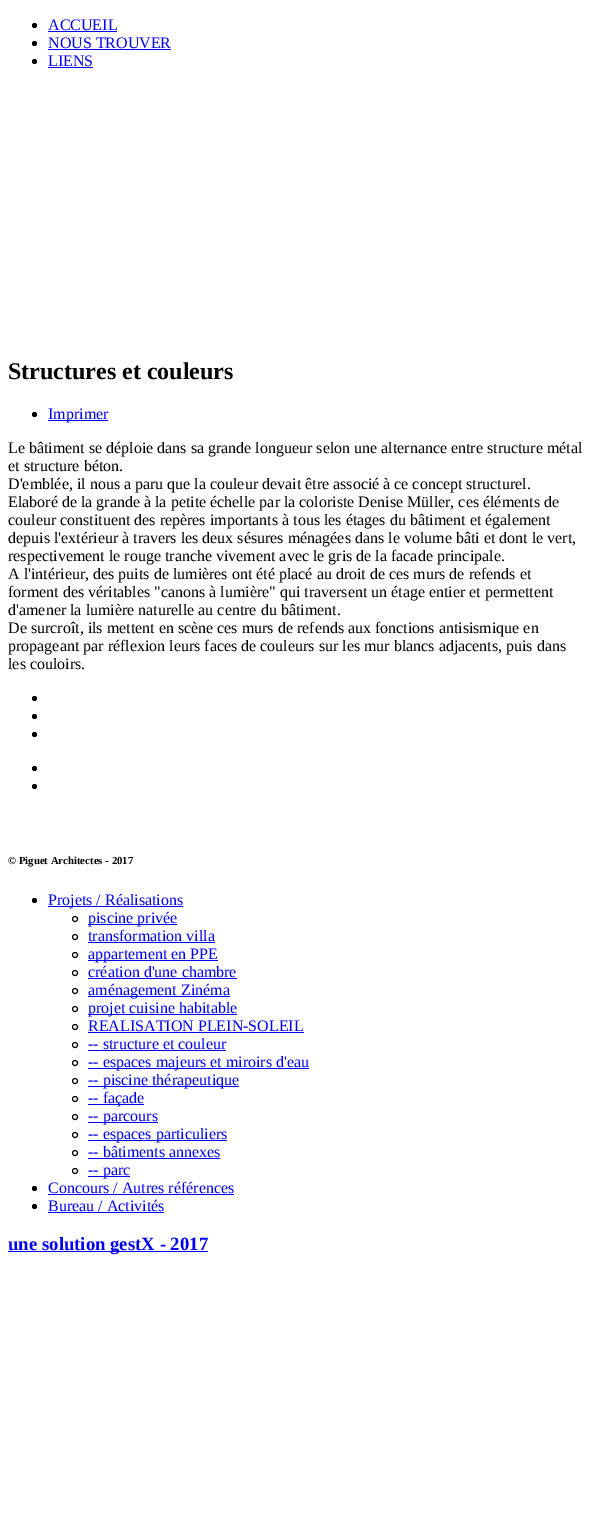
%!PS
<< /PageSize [591 1520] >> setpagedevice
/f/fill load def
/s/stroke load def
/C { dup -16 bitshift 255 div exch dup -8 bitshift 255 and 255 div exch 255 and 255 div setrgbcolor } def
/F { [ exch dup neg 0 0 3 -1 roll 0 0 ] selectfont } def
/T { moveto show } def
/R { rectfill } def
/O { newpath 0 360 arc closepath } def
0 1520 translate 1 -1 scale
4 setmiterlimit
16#FFFFFF C
0 0 591 1520 R
16#000000 C
34.5 25.5 2.5 O f
/LiberationSerif-Regular 16 F
16#0000EE C
(ACCUEIL) 48 30 T
48 31 69 1 R
16#000000 C
34.5 43.5 2.5 O f
16#0000EE C
(NOUS TROUVER) 48 48 T
48 49 123 1 R
16#000000 C
34.5 61.5 2.5 O f
16#0000EE C
(LIENS) 48 66 T
48 67 45 1 R
/LiberationSerif-Bold 24 F
16#000000 C
(Structures et couleurs) 8 379 T
34.5 414.5 2.5 O f
16#0000EE C
48 420 60 1 R
/LiberationSerif-Regular 16 F
(Imprimer) 48 419 T
16#000000 C
(Le bâtiment se déploie dans sa grande longueur selon une alternance entre structure métal) 8 453 T
(et structure béton.) 8 471 T
(D'emblée, il nous a paru que la couleur devait être associé à ce concept structurel.) 8 489 T
(Elaboré de la grande à la petite échelle par la coloriste Denise Müller, ces éléments de) 8 507 T
(couleur constituent des repères importants à tous les étages du bâtiment et également) 8 525 T
(depuis l'extérieur à travers les deux sésures ménagées dans le volume bâti et dont le vert,) 8 543 T
(respectivement le rouge tranche vivement avec le gris de la facade principale.) 8 561 T
(A l'intérieur, des puits de lumières ont été placé au droit de ces murs de refends et) 8 579 T
(forment des véritables "canons à lumière" qui traversent un étage entier et permettent) 8 597 T
(d'amener la lumière naturelle au centre du bâtiment.) 8 615 T
(De surcroît, ils mettent en scène ces murs de refends aux fonctions antisismique en) 8 633 T
(propageant par réflexion leurs faces de couleurs sur les mur blancs adjacents, puis dans) 8 651 T
(les couloirs.) 8 669 T
34.5 698.5 2.5 O f
34.5 716.5 2.5 O f
34.5 734.5 2.5 O f
34.5 768.5 2.5 O f
34.5 786.5 2.5 O f
/LiberationSerif-Bold 10.75 F
(© Piguet Architectes - 2017) 8 864 T
34.5 900.5 2.5 O f
16#0000EE C
48 906 135 1 R
/LiberationSerif-Regular 16 F
(Projets / Réalisations) 48 905 T
16#000000 C
75 919 2.5 O s
16#0000EE C
88 924 89 1 R
(piscine privée) 88 923 T
16#000000 C
75 937 2.5 O s
16#0000EE C
(transformation villa) 88 941 T
88 942 127 1 R
16#000000 C
75 955 2.5 O s
16#0000EE C
88 960 130 1 R
(appartement en PPE) 88 959 T
16#000000 C
75 973 2.5 O s
16#0000EE C
(création d'une chambre) 88 977 T
88 978 149 1 R
16#000000 C
75 991 2.5 O s
16#0000EE C
88 996 142 1 R
(aménagement Zinéma) 88 995 T
16#000000 C
75 1009 2.5 O s
16#0000EE C
88 1014 149 1 R
(projet cuisine habitable) 88 1013 T
16#000000 C
75 1027 2.5 O s
16#0000EE C
(REALISATION PLEIN-SOLEIL) 88 1031 T
88 1032 216 1 R
16#000000 C
75 1045 2.5 O s
16#0000EE C
(-- structure et couleur) 88 1049 T
88 1050 138 1 R
16#000000 C
75 1063 2.5 O s
16#0000EE C
88 1068 221 1 R
(-- espaces majeurs et miroirs d'eau) 88 1067 T
16#000000 C
75 1081 2.5 O s
16#0000EE C
88 1086 151 1 R
(-- piscine thérapeutique) 88 1085 T
16#000000 C
75 1099 2.5 O s
16#0000EE C
88 1104 56 1 R
(-- façade) 88 1103 T
16#000000 C
75 1117 2.5 O s
16#0000EE C
88 1122 70 1 R
(-- parcours) 88 1121 T
16#000000 C
75 1135 2.5 O s
16#0000EE C
88 1140 139 1 R
(-- espaces particuliers) 88 1139 T
16#000000 C
75 1153 2.5 O s
16#0000EE C
(-- bâtiments annexes) 88 1157 T
88 1158 132 1 R
16#000000 C
75 1171 2.5 O s
16#0000EE C
88 1176 42 1 R
(-- parc) 88 1175 T
16#000000 C
34.5 1188.5 2.5 O f
16#0000EE C
(Concours / Autres références) 48 1193 T
48 1194 186 1 R
16#000000 C
34.5 1206.5 2.5 O f
16#0000EE C
(Bureau / Activités) 48 1211 T
48 1212 116 1 R
8 1251 200 1 R
/LiberationSerif-Bold 18.75 F
(une solution gestX - 2017) 8 1250 T
showpage
